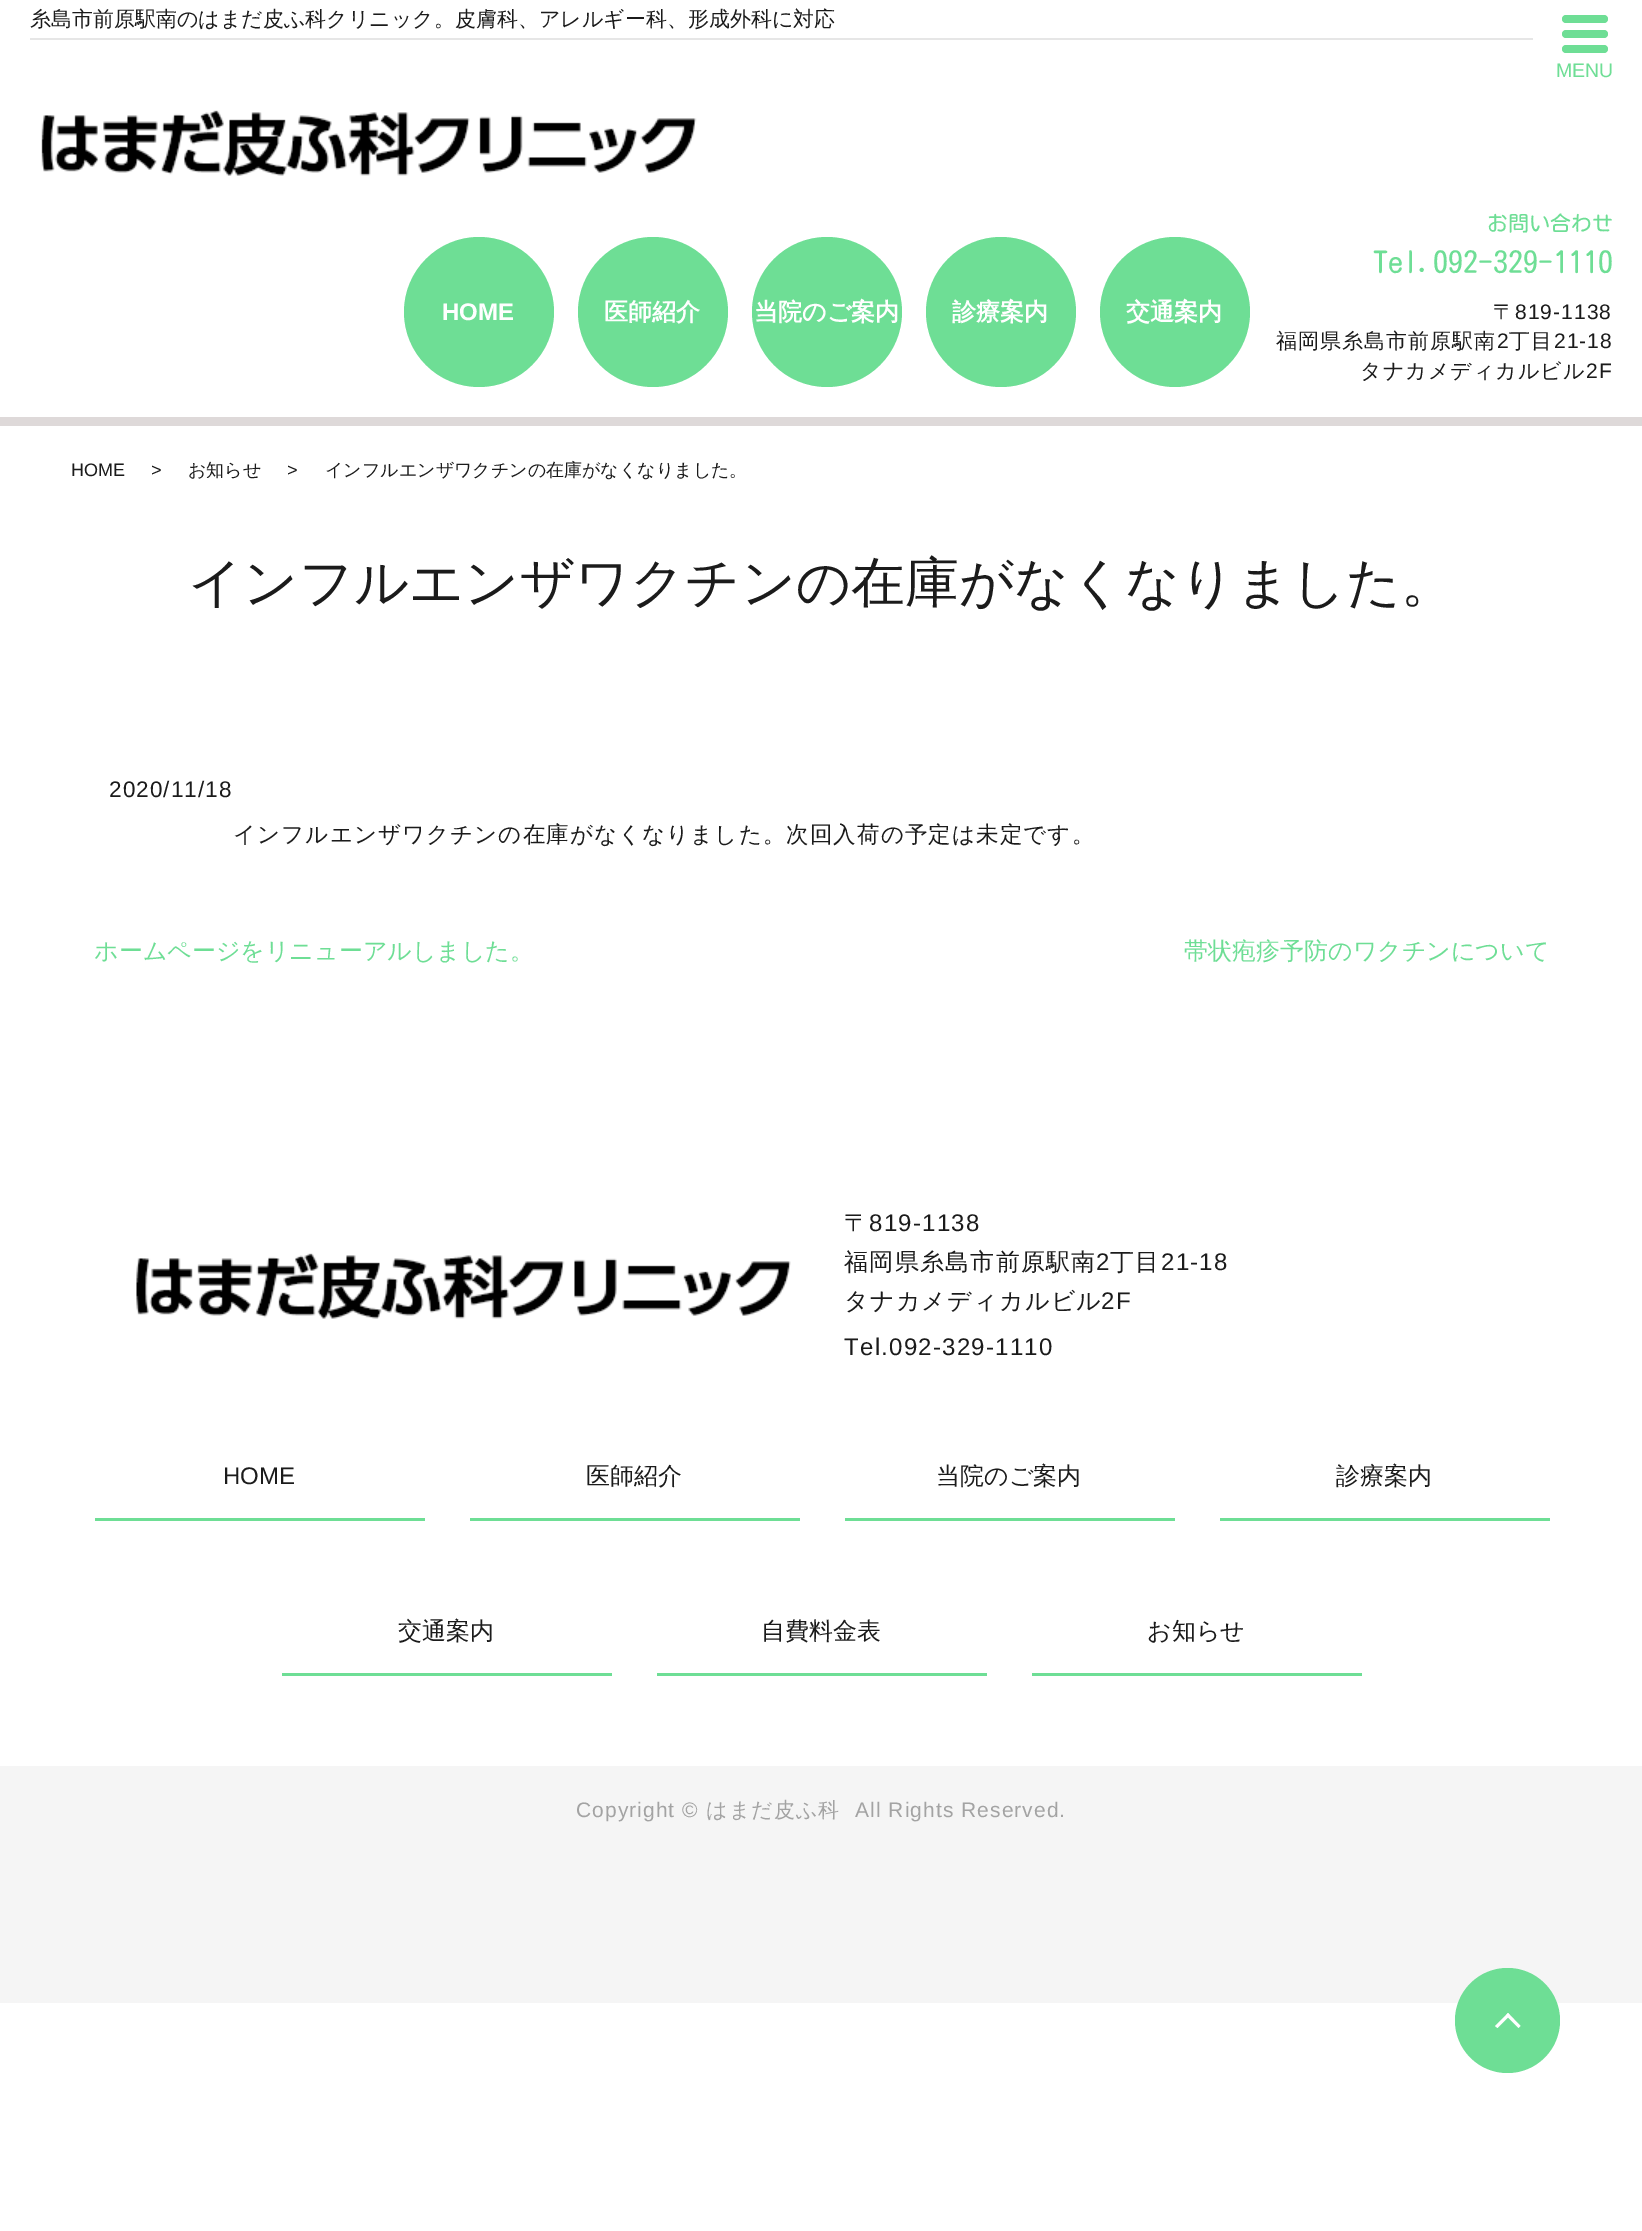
%!PS
<< /PageSize [1642 2231] >> setpagedevice
/m/moveto load def
/l/rlineto load def
/z/closepath load def
/f/fill load def
/C { dup -16 bitshift 255 div exch dup -8 bitshift 255 and 255 div exch 255 and 255 div setrgbcolor } def
/F { [ exch dup neg 0 0 3 -1 roll 0 0 ] selectfont } def
/T { moveto show } def
/R { rectfill } def
/O { newpath 0 360 arc closepath } def
/Q { 5 dict begin { /r /h /w /y /x } { exch def } forall
  x r add y moveto x w add y 2 copy h add r arct x w add y h add x 1 index r arct
  x y h add x y r arct x y 2 copy exch w add exch r arct closepath end } def
/I { 5 dict begin { /h /w /y /x /name } { exch def } forall
  gsave x y translate w h scale
  w h 8 [w 0 0 h 0 0] name (r) file false 3 colorimage grestore end } def
0 2231 translate 1 -1 scale
4 setmiterlimit
16#FFFFFF C
0 0 1642 2231 R
16#DED9D9 C
0 417 1642 9 R
16#E6E6E6 C
30 38 1503 2 R
/WenQuanYiZenHei-Medium 21 F
16#1B1B1B C
(糸島市前原駅南のはまだ皮ふ科クリニック。皮膚科、アレルギー科、形成外科に対応) 30 26 T
(1.rgb) 41 110 656 66 I
16#6EDE95 C
479 312 75 O f
/LiberationSans-Bold 24 F
16#FFFFFF C
(HOME) 442 320 T
16#6EDE95 C
653 312 75 O f
/WenQuanYiZenHei-Bold 24 F
16#FFFFFF C
(医師紹介) 604 320 T
16#6EDE95 C
827 312 75 O f
16#FFFFFF C
(当院のご案内) 754 320 T
16#6EDE95 C
1001 312 75 O f
16#FFFFFF C
(診療案内) 952 320 T
16#6EDE95 C
1175 312 75 O f
16#FFFFFF C
(交通案内) 1126 320 T
16#6EDE95 C
1562 15 46 8 4 Q f
1562 30 46 8 4 Q f
1562 45 46 8 4 Q f
/LiberationSans-Regular 19.5 F
(MENU) 1556 77 T
/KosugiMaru-Regular 21 F
(お問い合わせ) 1487 231 T
/KosugiMaru-Regular 30 F
(Tel.092-329-1110) 1373 273 T
/WenQuanYiZenHei-Medium 21 F
16#1B1B1B C
1493 319 m 1.05 0 (〒) ashow
/LiberationSans-Regular 21 F
1515 319 m 1.05 0 (819-1138) ashow
/WenQuanYiZenHei-Medium 21 F
1276 348 m 1.05 0 (福岡県糸島市前原駅南) ashow
/LiberationSans-Regular 21 F
1497 348 m 1.05 0 (2) ashow
/WenQuanYiZenHei-Medium 21 F
1509 348 m 1.05 0 (丁目) ashow
/LiberationSans-Regular 21 F
1554 348 m 1.05 0 (21-18) ashow
/WenQuanYiZenHei-Medium 21 F
1360 378 m 1.05 0 (タナカメディカルビル) ashow
/LiberationSans-Regular 21 F
1586 378 m 1.05 0 (2F) ashow
/LiberationSans-Regular 18 F
(HOME) 71 476 T
(>) 151 476 T
/WenQuanYiZenHei-Medium 18 F
(お知らせ) 188 476 T
/LiberationSans-Regular 18 F
(>) 287 476 T
/WenQuanYiZenHei-Medium 18 F
(インフルエンザワクチンの在庫がなくなりました。) 325 476 T
/WenQuanYiZenHei-Medium 54 F
(インフルエンザワクチンの在庫がなくなりました。) 188 601 T
/LiberationSans-Regular 22.5 F
109 797 m 1.1 0 (2020/11/18) ashow
/WenQuanYiZenHei-Medium 22.5 F
233 842 m 1.1 0 (インフルエンザワクチンの在庫がなくなりました。次回入荷の予定は未定です。) ashow
/WenQuanYiZenHei-Medium 24 F
16#6EDE95 C
(ホームページをリニューアルしました。) 94 959 T
(帯状疱疹予防のワクチンについて) 1184 959 T
16#F5F5F5 C
0 1766 1642 237 R
(2.rgb) 136 1253 655 66 I
16#1B1B1B C
844 1231 m 1.25 0 (〒) ashow
/LiberationSans-Regular 24 F
869 1231 m 1.25 0 (819-1138) ashow
/WenQuanYiZenHei-Medium 24 F
844 1270 m 1.25 0 (福岡県糸島市前原駅南) ashow
/LiberationSans-Regular 24 F
1096 1270 m 1.25 0 (2) ashow
/WenQuanYiZenHei-Medium 24 F
1110 1270 m 1.25 0 (丁目) ashow
/LiberationSans-Regular 24 F
1161 1270 m 1.25 0 (21-18) ashow
/WenQuanYiZenHei-Medium 24 F
844 1309 m 1.25 0 (タナカメディカルビル) ashow
/LiberationSans-Regular 24 F
1101 1309 m 1.25 0 (2F) ashow
844 1355 m 1.25 0 (Tel.092-329-1110) ashow
16#6EDE95 C
95 1518 330 3 R
16#1B1B1B C
(HOME) 223 1484 T
16#6EDE95 C
470 1518 330 3 R
/WenQuanYiZenHei-Medium 24 F
16#1B1B1B C
(医師紹介) 586 1484 T
16#6EDE95 C
845 1518 330 3 R
16#1B1B1B C
(当院のご案内) 936 1484 T
16#6EDE95 C
1220 1518 330 3 R
16#1B1B1B C
(診療案内) 1336 1484 T
16#6EDE95 C
282 1673 330 3 R
16#1B1B1B C
(交通案内) 398 1639 T
16#6EDE95 C
657 1673 330 3 R
16#1B1B1B C
(自費料金表) 761 1639 T
16#6EDE95 C
1032 1673 330 3 R
16#1B1B1B C
(お知らせ) 1147 1639 T
/LiberationSans-Regular 21 F
16#A3A3A3 C
576 1817 m 1.05 0 (Copyright ©) ashow
/WenQuanYiZenHei-Medium 21 F
706 1817 m 1.05 0 (はまだ皮ふ科) ashow
/LiberationSans-Regular 21 F
855 1817 m 1.05 0 (All Rights Reserved.) ashow
16#6EDE95 C
1507.5 2020.5 52.5 O f
16#FFFFFF C
1508 2013 m 12.5 13 l -2 2 l -12.5 -12.5 l z f
1508 2013 m 2 2.5 l -12.5 12.5 l -2.5 -2 l z f
showpage
